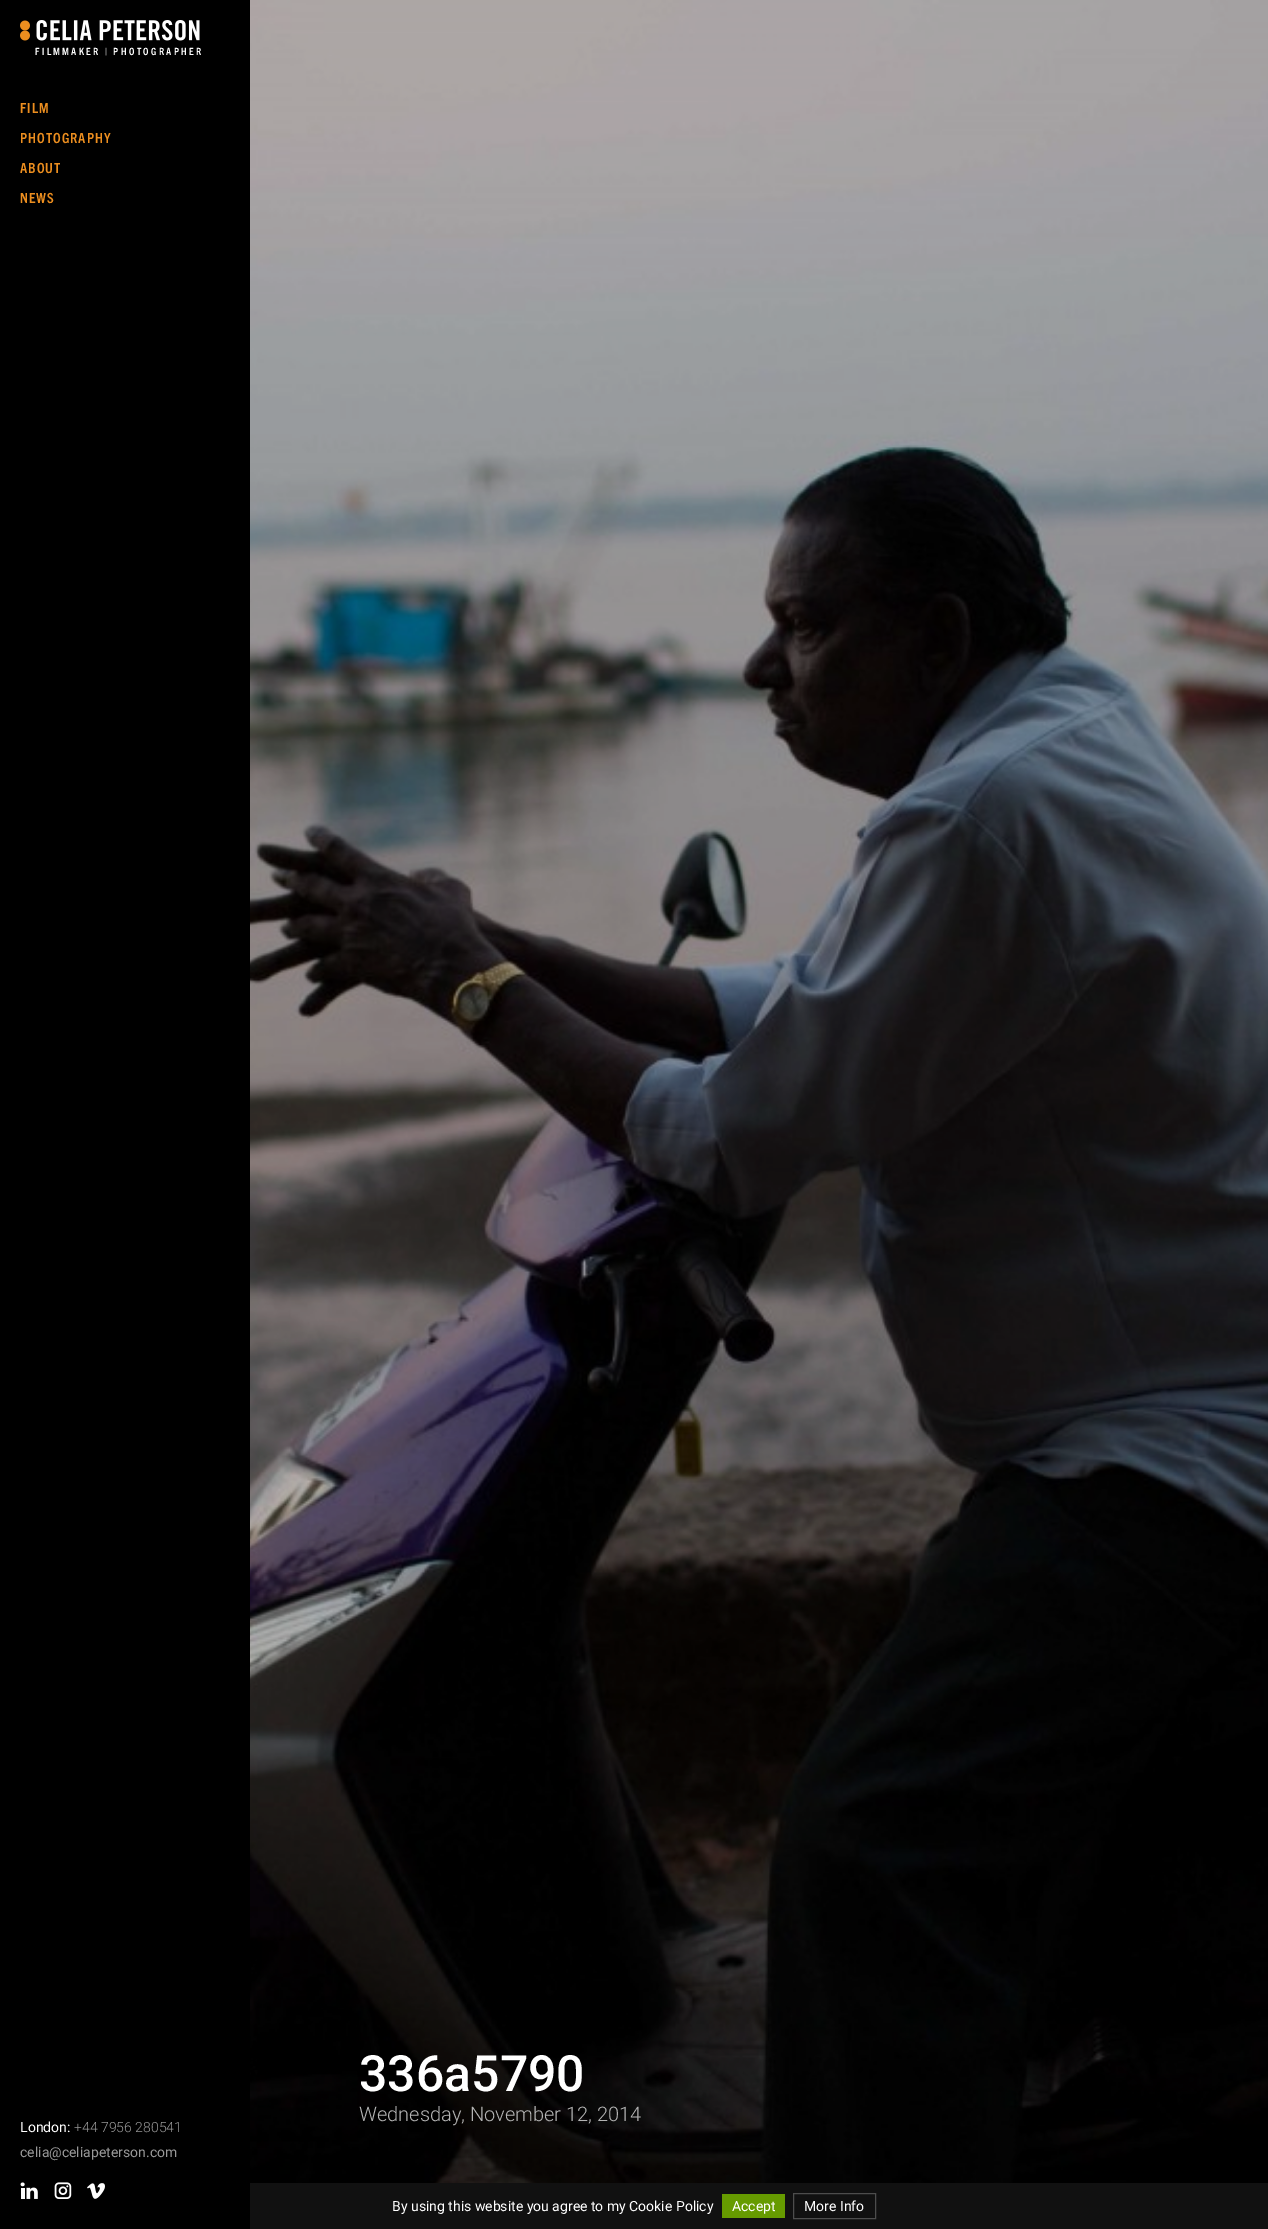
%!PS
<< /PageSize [1268 2229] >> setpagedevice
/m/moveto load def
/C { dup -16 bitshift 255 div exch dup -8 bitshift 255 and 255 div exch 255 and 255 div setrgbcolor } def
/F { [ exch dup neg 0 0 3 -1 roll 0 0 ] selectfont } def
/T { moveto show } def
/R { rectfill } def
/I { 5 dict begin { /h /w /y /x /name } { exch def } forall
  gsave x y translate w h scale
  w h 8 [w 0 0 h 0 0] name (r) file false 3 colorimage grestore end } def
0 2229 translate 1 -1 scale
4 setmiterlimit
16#FFFFFF C
0 0 1268 2229 R
16#000000 C
0 0 250 2229 R
(1.rgb) 20 20 180 21 I
/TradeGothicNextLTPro-Bold 10 F
16#FFFFFF C
35 55 m 2.3 0 (FILMMAKER | PHOTOGRAPHER) ashow
/TradeGothicNextLTPro-Bold 14 F
16#EC8E1F C
20 113 m 1 0 (FILM) ashow
20 143 m 1 0 (PHOTOGRAPHY) ashow
20 173 m 1 0 (ABOUT) ashow
20 203 m 1 0 (NEWS) ashow
/Roboto-Regular 14 F
16#FFFFFF C
(London:) 20 2132 T
/Roboto-Light 14 F
16#999999 C
(+44 7956 280541) 74 2132 T
/Roboto-Regular 14 F
(celia@celiapeterson.com) 20 2157 T
(2.rgb) 20 2182 18 17 I
(3.rgb) 54 2182 18 17 I
(4.rgb) 87 2183 18 16 I
(5.rgb) 250 0 1018 2183 I
/Roboto-Medium 50 F
16#FFFFFF C
(336a5790) 359 2091 T
/Roboto-Light 20 F
16#B4B4B4 C
(Wednesday, November 12, 2014) 359 2121 T
16#111111 C
250 2183 1018 46 R
/Roboto-Regular 14 F
16#FFFFFF C
(By using this website you agree to my Cookie Policy) 392 2211 T
16#669B00 C
722 2194 63 24 R
16#FFFFFF C
(Accept) 732 2211 T
16#4D4D4D C
793.5 2193.5 82 25 rectstroke
16#FFFFFF C
(More Info) 804 2211 T
showpage
